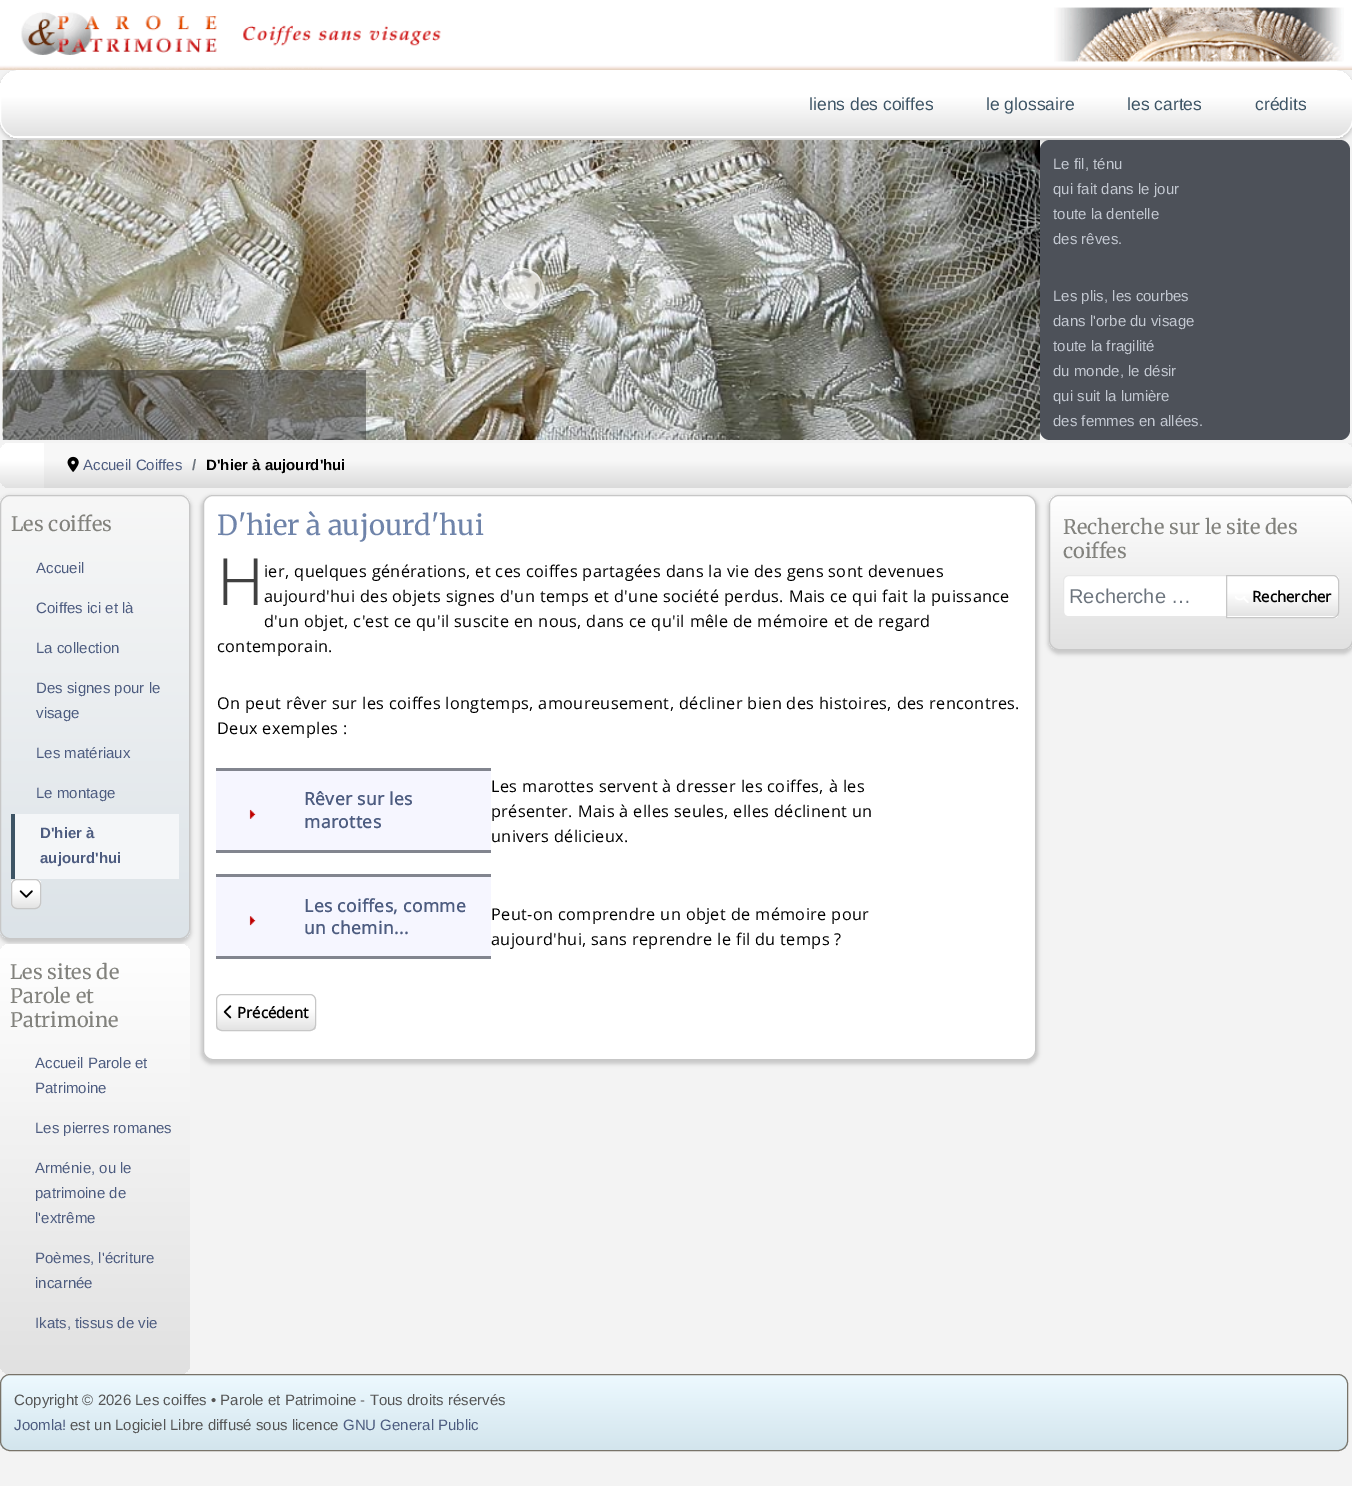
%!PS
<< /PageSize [1352 1486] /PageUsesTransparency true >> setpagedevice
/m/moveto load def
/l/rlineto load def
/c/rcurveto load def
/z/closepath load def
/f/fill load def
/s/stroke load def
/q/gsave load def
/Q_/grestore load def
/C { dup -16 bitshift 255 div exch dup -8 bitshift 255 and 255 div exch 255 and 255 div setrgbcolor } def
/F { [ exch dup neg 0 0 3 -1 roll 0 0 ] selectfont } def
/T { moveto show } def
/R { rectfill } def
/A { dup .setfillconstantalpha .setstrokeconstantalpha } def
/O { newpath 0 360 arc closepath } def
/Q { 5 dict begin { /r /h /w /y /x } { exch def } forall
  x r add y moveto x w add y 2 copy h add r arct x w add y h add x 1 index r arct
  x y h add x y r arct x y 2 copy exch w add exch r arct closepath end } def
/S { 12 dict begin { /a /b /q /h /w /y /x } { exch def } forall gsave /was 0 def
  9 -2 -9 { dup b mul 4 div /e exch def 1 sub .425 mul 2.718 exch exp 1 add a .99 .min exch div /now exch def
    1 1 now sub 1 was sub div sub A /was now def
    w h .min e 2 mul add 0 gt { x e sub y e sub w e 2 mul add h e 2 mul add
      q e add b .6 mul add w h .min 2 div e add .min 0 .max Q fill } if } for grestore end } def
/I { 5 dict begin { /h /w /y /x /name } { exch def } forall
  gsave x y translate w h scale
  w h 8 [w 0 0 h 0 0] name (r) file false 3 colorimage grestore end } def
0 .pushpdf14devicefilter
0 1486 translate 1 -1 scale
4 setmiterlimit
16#F3F3F3 C
0 0 1352 1486 R
16#C7C7C7 C
-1 71 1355 70 20 2 1 S
(1.rgb) 0 0 1352 70 I
q
0 70 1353 68 19 Q clip newpath
q 0 71 m 1352 0 l 0 65 l -1352 0 l z clip newpath
<< /ShadingType 2 /ColorSpace /DeviceRGB /Coords [1.2 71 1.2 136] /Extend [true true] /Function << /FunctionType 3 /Domain [0 1] /Functions [<< /FunctionType 2 /Domain [0 1] /C0 [1 1 1] /C1 [1 1 1] /N 1 >> << /FunctionType 2 /Domain [0 1] /C0 [1 1 1] /C1 [.882 .882 .882] /N 1 >>] /Bounds [.4] /Encode [0 1 0 1] >> >> shfill Q_
q 10 136 m 1333 0 l 0 2 l -1333 0 l z clip newpath
<< /ShadingType 2 /ColorSpace /DeviceRGB /Coords [1.2 136 1.2 201] /Extend [true true] /Function << /FunctionType 3 /Domain [0 1] /Functions [<< /FunctionType 2 /Domain [0 1] /C0 [1 1 1] /C1 [1 1 1] /N 1 >> << /FunctionType 2 /Domain [0 1] /C0 [1 1 1] /C1 [.882 .882 .882] /N 1 >>] /Bounds [.4] /Encode [0 1 0 1] >> >> shfill Q_
Q_
16#FFFFFF C
.5 70.5 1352 67 18.5 Q s
/LiberationSans-Regular 17.5 F
16#3D5465 C
(liens des coiffes) 809 110 T
(le glossaire) 986 110 T
(les cartes) 1127 110 T
(crédits) 1255 110 T
(2.rgb) 2 140 1038 300 I
0.5 A
16#303030 C
3 370 363 70 R
0.44 A
16#FFFFFF C
521.5 290.5 22.5 O f
1 A
(3.rgb) 502 271 38 38 I
0.49 A
521.5 290.5 22 O s
1 A
16#4D5159 C
1040 140 310 300 10 Q f
/LiberationSans-Regular 15 F
16#C3C8D1 C
(Le fil, ténu) 1053 169 T
(qui fait dans le jour) 1053 194 T
(toute la dentelle) 1053 219 T
(des rêves.) 1053 244 T
(Les plis, les courbes) 1053 301 T
(dans l'orbe du visage) 1053 326 T
(toute la fragilité) 1053 351 T
(du monde, le désir) 1053 376 T
(qui suit la lumière) 1053 401 T
(des femmes en allées.) 1053 426 T
q 0 443 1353 45 10 Q clip newpath
<< /ShadingType 2 /ColorSpace /DeviceRGB /Coords [0 443 0 488] /Extend [true true] /Function << /FunctionType 3 /Domain [0 1] /Functions [<< /FunctionType 2 /Domain [0 1] /C0 [1 1 1] /C1 [1 1 1] /N 1 >> << /FunctionType 2 /Domain [0 1] /C0 [1 1 1] /C1 [.882 .882 .882] /N 1 >>] /Bounds [.4] /Encode [0 1 0 1] >> >> shfill Q_
0.03 A
16#000000 C
44 443 1308 45 R
1 A
(4.rgb) 67 456 12 16 I
16#4D5C80 C
(Accueil Coiffes) 83 470 T
/LiberationSans-Bold 15 F
16#6D757E C
(/) 192 470 T
16#000000 C
(D'hier à aujourd'hui) 206 470 T
16#C7C7C7 C
-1 496 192 447 11 2 1 S
q
0 495 190 444 10 Q clip newpath
q 0 496 m 190 0 l 0 442 l -190 0 l z clip newpath
<< /ShadingType 2 /ColorSpace /DeviceRGB /Coords [1.2 496 1.2 938] /Extend [true true] /Function << /FunctionType 2 /Domain [0 1] /C0 [.969 .969 .969] /C1 [.863 .89 .91] /N 1 >> >> shfill Q_
Q_
.5 495.5 189 443 9.5 Q s
/Merriweather-Light 20 F
16#82827D C
(Les coiffes) 11 531 T
/LiberationSans-Regular 15 F
16#4D5C80 C
(Accueil) 36 573 T
(Coiffes ici et là) 36 613 T
(La collection) 36 653 T
(Des signes pour le) 36 693 T
(visage) 36 718 T
(Les matériaux) 36 758 T
(Le montage) 36 798 T
16#F4F6F8 C
15 814 164 65 R
16#3D5465 C
11 814 4 65 R
/LiberationSans-Bold 15 F
16#4D5C80 C
(D'hier à) 40 838 T
(aujourd'hui) 40 863 T
q
11 879 30 30 6 Q clip newpath
q 11 880 m 30 0 l 0 28 l -30 0 l z clip newpath
<< /ShadingType 2 /ColorSpace /DeviceRGB /Coords [13 880 13 908] /Extend [true true] /Function << /FunctionType 3 /Domain [0 1] /Functions [<< /FunctionType 2 /Domain [0 1] /C0 [1 1 1] /C1 [1 1 1] /N 1 >> << /FunctionType 2 /Domain [0 1] /C0 [1 1 1] /C1 [.89 .89 .89] /N 1 >>] /Bounds [.4] /Encode [0 1 0 1] >> >> shfill Q_
Q_
16#C7C7C7 C
11.5 879.5 29 29 5.5 Q s
(5.rgb) 19 890 14 8 I
q 0 944 190 430 10 Q clip newpath
<< /ShadingType 2 /ColorSpace /DeviceRGB /Coords [0 944 0 1374] /Extend [true true] /Function << /FunctionType 2 /Domain [0 1] /C0 [1 1 1] /C1 [.882 .882 .882] /N 1 >> >> shfill Q_
/Merriweather-Light 20 F
16#82827D C
(Les sites de) 10 979 T
(Parole et) 10 1003 T
(Patrimoine) 10 1027 T
/LiberationSans-Regular 15 F
16#4D5C80 C
(Accueil Parole et) 35 1068 T
(Patrimoine) 35 1093 T
(Les pierres romanes) 35 1133 T
(Arménie, ou le) 35 1173 T
(patrimoine de) 35 1198 T
(l'extrême) 35 1223 T
(Poèmes, l'écriture) 35 1263 T
(incarnée) 35 1288 T
(Ikats, tissus de vie) 35 1328 T
16#C7C7C7 C
201 496 837 568 11 2 1 S
16#FFFFFF C
203.5 495.5 832 564 9.5 Q q f Q_
16#C7C7C7 C
s
/Merriweather-Light 27.5 F
16#6F84AA C
(D'hier à aujourd'hui) 217 535 T
/NotoSans-Light 65 F
16#404040 C
217 605 m .38 0 (H) ashow
/OpenSans-Regular 16.25 F
16#000000 C
264 577 m .38 0 (ier, quelques générations, et ces coiffes partagées dans la vie des gens sont devenues) ashow
264 602 m .38 0 (aujourd'hui des objets signes d'un temps et d'une société perdus. Mais ce qui fait la puissance) ashow
264 627 m .38 0 (d'un objet, c'est ce qu'il suscite en nous, dans ce qu'il mêle de mémoire et de regard) ashow
217 652 m .38 0 (contemporain.) ashow
217 709 m .38 0 (On peut rêver sur les coiffes longtemps, amoureusement, décliner bien des histoires, des rencontres.) ashow
217 734 m .38 0 (Deux exemples :) ashow
16#F6F6FF C
216 771 275 79 R
(6.rgb) 249 809 7 10 I
16#82858F C
216 768 275 3 R
216 850 275 3 R
/OpenSans-Bold 17.5 F
16#4D5C80 C
304 805 m .38 0 (Rêver sur les) ashow
304 828 m .38 0 (marottes) ashow
/OpenSans-Regular 16.25 F
16#000000 C
491 792 m .38 0 (Les marottes servent à dresser les coiffes, à les) ashow
491 817 m .38 0 (présenter. Mais à elles seules, elles déclinent un) ashow
491 842 m .38 0 (univers délicieux.) ashow
16#F6F6FF C
216 877 275 79 R
(7.rgb) 249 916 7 10 I
16#82858F C
216 874 275 3 R
216 956 275 3 R
/OpenSans-Bold 17.5 F
16#4D5C80 C
304 912 m .38 0 (Les coiffes, comme) ashow
304 934 m .38 0 (un chemin...) ashow
/OpenSans-Regular 16.25 F
16#000000 C
491 920 m .38 0 (Peut-on comprendre un objet de mémoire pour) ashow
491 945 m .38 0 (aujourd'hui, sans reprendre le fil du temps ?) ashow
q
216 994 100 37 6 Q clip newpath
q 216 995 m 100 0 l 0 35 l -100 0 l z clip newpath
<< /ShadingType 2 /ColorSpace /DeviceRGB /Coords [218 995 218 1030] /Extend [true true] /Function << /FunctionType 3 /Domain [0 1] /Functions [<< /FunctionType 2 /Domain [0 1] /C0 [1 1 1] /C1 [1 1 1] /N 1 >> << /FunctionType 2 /Domain [0 1] /C0 [1 1 1] /C1 [.89 .89 .89] /N 1 >>] /Bounds [.4] /Encode [0 1 0 1] >> >> shfill Q_
Q_
16#C7C7C7 C
216.5 994.5 99 36 5.5 Q s
(8.rgb) 223 1005 9 14 I
/OpenSans-Bold 15 F
16#000000 C
(Précédent) 237 1018 T
16#C7C7C7 C
1048 496 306 158 11 2 1 S
q
1049 495 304 155 10 Q clip newpath
q 1049 496 m 303 0 l 0 153 l -303 0 l z clip newpath
<< /ShadingType 2 /ColorSpace /DeviceRGB /Coords [1050 496 1050 649] /Extend [true true] /Function << /FunctionType 2 /Domain [0 1] /C0 [1 1 1] /C1 [.882 .882 .882] /N 1 >> >> shfill Q_
Q_
1049.5 495.5 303 154 9.5 Q s
/Merriweather-Light 20 F
16#82827D C
(Recherche sur le site des) 1063 534 T
(coiffes) 1063 558 T
16#FFFFFF C
1069 576 m 157 0 l 0 40 l -157 0 l -3 0 -5 -2 -5 -5 c 0 -30 l 0 -3 2 -5 5 -5 c z f
16#E7E7E7 C
1069 575.5 m 158.5 0 l 0 42 l -158.5 0 l -3 0 -5.5 -2.5 -5.5 -5.5 c 0 -31 l 0 -3 2.5 -5.5 5.5 -5.5 c z s
/LiberationSans-Regular 20 F
16#6D757E C
(Recherche …) 1069 603 T
q
1226 575 m 107 0 l 3.5 0 6 2.5 6 6 c 0 31 l 0 3.5 -2.5 6 -6 6 c -107 0 l z clip newpath
q 1227 576 m 112 0 l 0 40 l -112 0 l z clip newpath
<< /ShadingType 2 /ColorSpace /DeviceRGB /Coords [1228 576 1228 616] /Extend [true true] /Function << /FunctionType 3 /Domain [0 1] /Functions [<< /FunctionType 2 /Domain [0 1] /C0 [1 1 1] /C1 [1 1 1] /N 1 >> << /FunctionType 2 /Domain [0 1] /C0 [1 1 1] /C1 [.89 .89 .89] /N 1 >>] /Bounds [.4] /Encode [0 1 0 1] >> >> shfill Q_
q 1226 616 m 113 0 l 0 2 l -113 0 l z clip newpath
<< /ShadingType 2 /ColorSpace /DeviceRGB /Coords [1228 616 1228 656] /Extend [true true] /Function << /FunctionType 3 /Domain [0 1] /Functions [<< /FunctionType 2 /Domain [0 1] /C0 [1 1 1] /C1 [1 1 1] /N 1 >> << /FunctionType 2 /Domain [0 1] /C0 [1 1 1] /C1 [.89 .89 .89] /N 1 >>] /Bounds [.4] /Encode [0 1 0 1] >> >> shfill Q_
Q_
16#C7C7C7 C
1226.5 575.5 m 106.5 0 l 3 0 5.5 2.5 5.5 5.5 c 0 31 l 0 3 -2.5 5.5 -5.5 5.5 c -106.5 0 l z s
(9.rgb) 1235 596 14 7 I
/OpenSans-Bold 15 F
16#000000 C
(Rechercher) 1252 602 T
q
0 1374 1348 77 10 Q clip newpath
q 0 1375 m 1348 0 l 0 75 l -1348 0 l z clip newpath
<< /ShadingType 2 /ColorSpace /DeviceRGB /Coords [1.2 1375 1.2 1450] /Extend [true true] /Function << /FunctionType 2 /Domain [0 1] /C0 [.929 .976 1] /C1 [.827 .898 .929] /N 1 >> >> shfill Q_
Q_
16#787369 C
.5 1374.5 1347 76 9.5 Q s
/LiberationSans-Regular 15 F
16#555555 C
(Copyright © 2026 Les coiffes • Parole et Patrimoine - Tous droits réservés) 14 1405 T
16#4D5C80 C
(Joomla!) 14 1430 T
16#555555 C
(est un Logiciel Libre diffusé sous licence) 70 1430 T
16#4D5C80 C
(GNU General Public) 343 1430 T
.poppdf14devicefilter showpage
